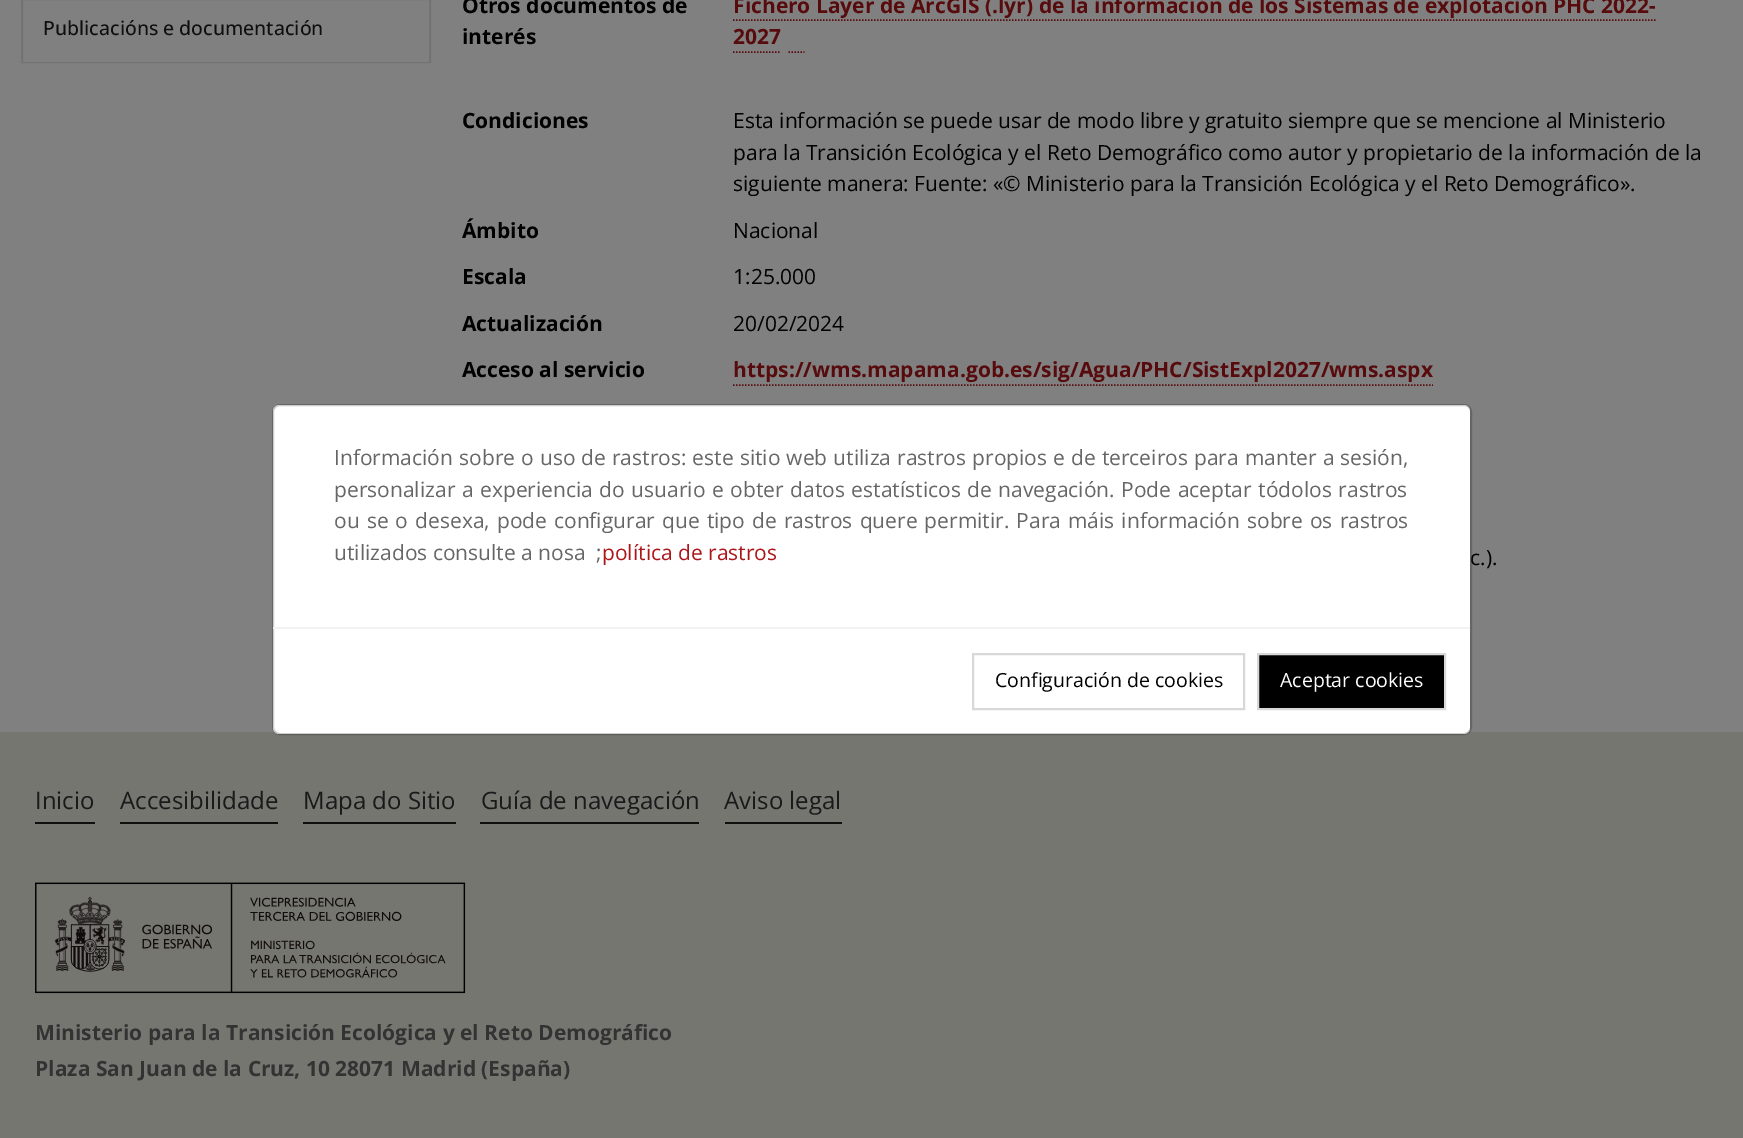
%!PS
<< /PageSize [1743 1138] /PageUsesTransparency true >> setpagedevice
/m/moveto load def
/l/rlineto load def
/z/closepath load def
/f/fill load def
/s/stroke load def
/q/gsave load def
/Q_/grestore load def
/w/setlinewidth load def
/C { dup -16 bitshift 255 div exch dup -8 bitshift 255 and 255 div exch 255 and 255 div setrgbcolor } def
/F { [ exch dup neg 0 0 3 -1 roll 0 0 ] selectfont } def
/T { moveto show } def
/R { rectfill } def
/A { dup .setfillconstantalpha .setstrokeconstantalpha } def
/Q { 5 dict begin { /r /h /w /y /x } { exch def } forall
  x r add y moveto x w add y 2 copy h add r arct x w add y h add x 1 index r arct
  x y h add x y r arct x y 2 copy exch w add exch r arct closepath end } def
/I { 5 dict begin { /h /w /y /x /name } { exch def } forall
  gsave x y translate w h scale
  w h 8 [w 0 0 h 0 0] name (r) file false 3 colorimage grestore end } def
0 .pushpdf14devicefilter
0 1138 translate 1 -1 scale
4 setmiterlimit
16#808080 C
0 0 1743 1138 R
16#737373 C
2 w
22 -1 408 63 rectstroke
16#808080 C
23 61 406 1 R
/OpenSans-Medium 19.5 F
16#0F0F0F C
(Publicacións e documentación) 43 35 T
/OpenSans-Bold 21 F
16#000000 C
(Otros documentos de) 462 13 T
(interés) 462 44 T
16#570B0D C
(Fichero Layer de ArcGIS \(.lyr\) de la información de los Sistemas de explotación PHC 2022-) 733 13 T
1.5 w
[1.5 1.5] 0 setdash
733 20 m 923 0 l s
(2027) 733 44 T
733 52 m 48 0 l s
788.5 52 m 16 0 l s
16#000000 C
(Condiciones) 462 128 T
/OpenSans-Regular 21 F
(Esta información se puede usar de modo libre y gratuito siempre que se mencione al Ministerio) 733 128 T
(para la Transición Ecológica y el Reto Demográfico como autor y propietario de la información de la) 733 160 T
(siguiente manera: Fuente: «© Ministerio para la Transición Ecológica y el Reto Demográfico».) 733 191 T
/OpenSans-Bold 21 F
(Ámbito) 462 238 T
/OpenSans-Regular 21 F
(Nacional) 733 238 T
/OpenSans-Bold 21 F
(Escala) 462 284 T
/OpenSans-Regular 21 F
(1:25.000) 733 284 T
/OpenSans-Bold 21 F
(Actualización) 462 331 T
/OpenSans-Regular 21 F
(20/02/2024) 733 331 T
/OpenSans-Bold 21 F
(Acceso al servicio) 462 377 T
16#570B0D C
(https://wms.mapama.gob.es/sig/Agua/PHC/SistExpl2027/wms.aspx) 733 377 T
733 385 m 700 0 l s
/OpenSans-Regular 21 F
16#000000 C
(c.\).) 1470 565 T
16#767671 C
0 732 1743 406 R
16#FFFFFF C
273 405 1197 329 6 Q f
0.2 A
16#000000 C
2 w
[] 0 setdash
273 405 1198 329 7 Q s
1 A
16#666666 C
334 465 m .6 0 32 (Información sobre o uso de rastros: este sitio web utiliza rastros propios e de terceiros para manter a sesión,) widthshow
334 497 m 1.1 0 32 (personalizar a experiencia do usuario e obter datos estatísticos de navegación. Pode aceptar tódolos rastros) widthshow
334 528 m 1.6 0 32 (ou se o desexa, pode configurar que tipo de rastros quere permitir. Para máis información sobre os rastros) widthshow
(utilizados consulte a nosa  ;) 334 560 T
16#AD1519 C
(política de rastros) 602 560 T
16#F2F2F2 C
273 627 1197 2 R
16#D8D8D8 C
973 654 271 55 rectstroke
/OpenSans-Regular 19.5 F
16#000000 C
(Configuración de cookies) 995 687 T
1258 654 m 187 0 l 0 55 l -187 0 l z q f Q_
16#D8D8D8 C
s
16#FFFFFF C
(Aceptar cookies) 1280 687 T
/OpenSans-Regular 24 F
16#1A1A1A C
(Inicio) 35 809 T
16#0F0F0E C
35 822 60 2 R
16#1A1A1A C
(Accesibilidade) 120 809 T
16#0F0F0E C
120 822 158 2 R
16#1A1A1A C
(Mapa do Sitio) 303 809 T
16#0F0F0E C
303 822 153 2 R
16#1A1A1A C
(Guía de navegación) 481 809 T
16#0F0F0E C
480 822 219 2 R
16#1A1A1A C
(Aviso legal) 724 809 T
16#0F0F0E C
725 822 117 2 R
(1.rgb) 35 882 431 112 I
/OpenSans-Bold 21 F
16#333333 C
(Ministerio para la Transición Ecológica y el Reto Demográfico) 35 1040 T
(Plaza San Juan de la Cruz, 10 28071 Madrid \(España\)) 35 1076 T
.poppdf14devicefilter showpage
